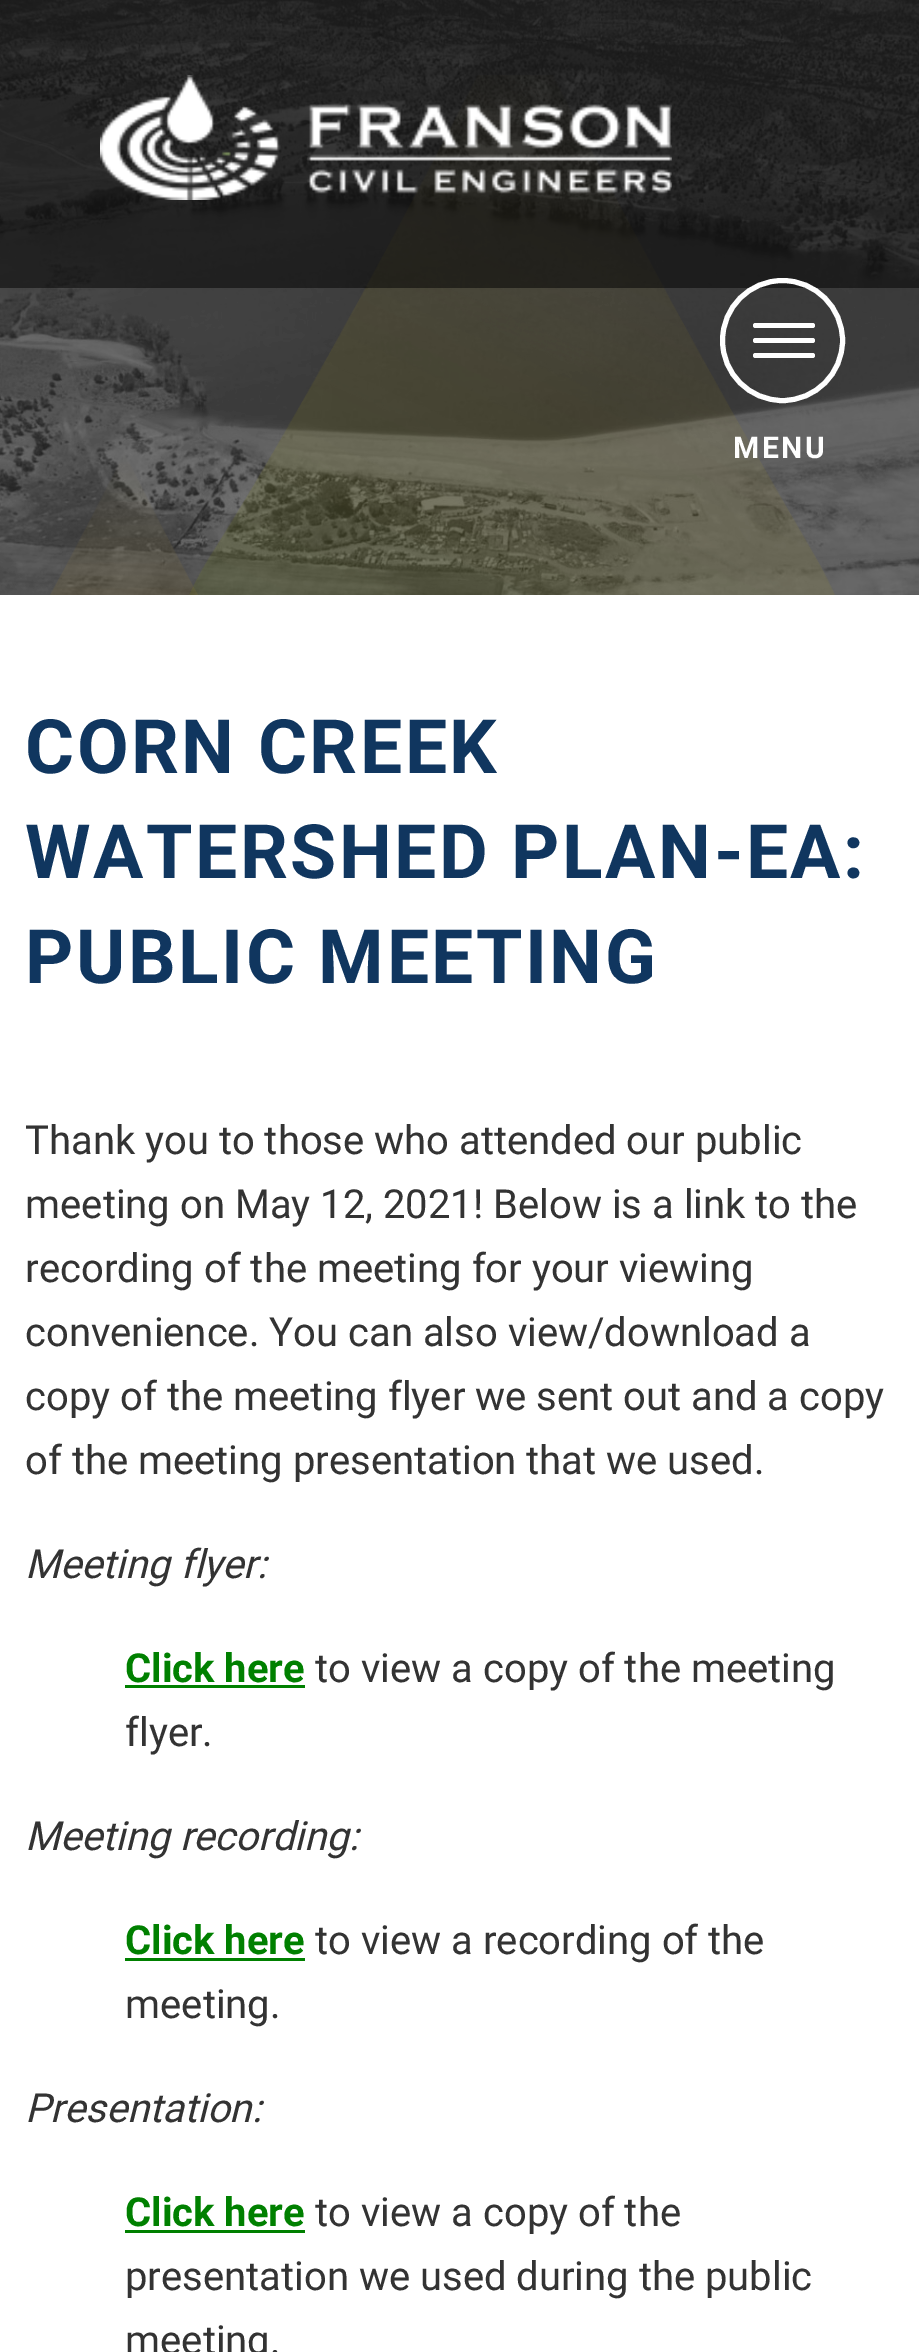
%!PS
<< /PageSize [919 2352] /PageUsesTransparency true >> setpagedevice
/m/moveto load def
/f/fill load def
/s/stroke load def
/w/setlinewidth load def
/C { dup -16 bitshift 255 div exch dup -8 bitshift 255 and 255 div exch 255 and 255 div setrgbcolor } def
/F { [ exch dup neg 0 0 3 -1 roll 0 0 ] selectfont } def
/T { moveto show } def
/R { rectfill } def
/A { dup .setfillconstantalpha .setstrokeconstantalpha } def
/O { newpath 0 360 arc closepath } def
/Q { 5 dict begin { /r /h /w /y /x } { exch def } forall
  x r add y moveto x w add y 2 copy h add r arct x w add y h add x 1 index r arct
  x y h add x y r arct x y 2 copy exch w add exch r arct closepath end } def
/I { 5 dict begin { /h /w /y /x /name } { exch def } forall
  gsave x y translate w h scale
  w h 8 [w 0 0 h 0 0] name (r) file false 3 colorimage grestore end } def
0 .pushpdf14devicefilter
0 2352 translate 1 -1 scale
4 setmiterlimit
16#FFFFFF C
0 0 919 2352 R
16#333333 C
0 0 919 595 R
(1.rgb) 0 0 919 595 I
(2.rgb) 50 75 785 520 I
0.5 A
16#000000 C
0 0 919 288 R
1 A
(3.rgb) 100 75 572 125 I
16#FEFEFE C
5 w
782.5 340.5 60 O s
753 323 62 5 2.5 Q f
753 338 62 5 2.5 Q f
753 353 62 5 2.5 Q f
/Roboto-Bold 30 F
733 458 m 2.5 0 (MENU) ashow
/Roboto-Bold 75 F
16#10365F C
25 773 m 2.5 0 (CORN CREEK) ashow
25 878 m 2.5 0 (WATERSHED PLAN-EA:) ashow
25 983 m 2.5 0 (PUBLIC MEETING) ashow
/Roboto-Regular 40 F
16#333333 C
(Thank you to those who attended our public) 25 1154 T
(meeting on May 12, 2021! Below is a link to the) 25 1218 T
(recording of the meeting for your viewing) 25 1282 T
(convenience. You can also view/download a) 25 1346 T
(copy of the meeting flyer we sent out and a copy) 25 1410 T
(of the meeting presentation that we used.) 25 1474 T
/Roboto-Italic 40 F
(Meeting flyer:) 25 1578 T
/Roboto-Bold 40 F
16#008000 C
(Click here) 125 1682 T
125 1685 180 3 R
/Roboto-Regular 40 F
16#333333 C
(to view a copy of the meeting) 315 1682 T
(flyer.) 125 1746 T
/Roboto-Italic 40 F
(Meeting recording:) 25 1850 T
/Roboto-Bold 40 F
16#008000 C
(Click here) 125 1954 T
125 1958 180 3 R
/Roboto-Regular 40 F
16#333333 C
(to view a recording of the) 315 1954 T
(meeting.) 125 2018 T
/Roboto-Italic 40 F
(Presentation:) 25 2122 T
/Roboto-Bold 40 F
16#008000 C
(Click here) 125 2226 T
125 2230 180 3 R
/Roboto-Regular 40 F
16#333333 C
(to view a copy of the) 315 2226 T
(presentation we used during the public) 125 2290 T
(meeting.) 125 2354 T
.poppdf14devicefilter showpage
